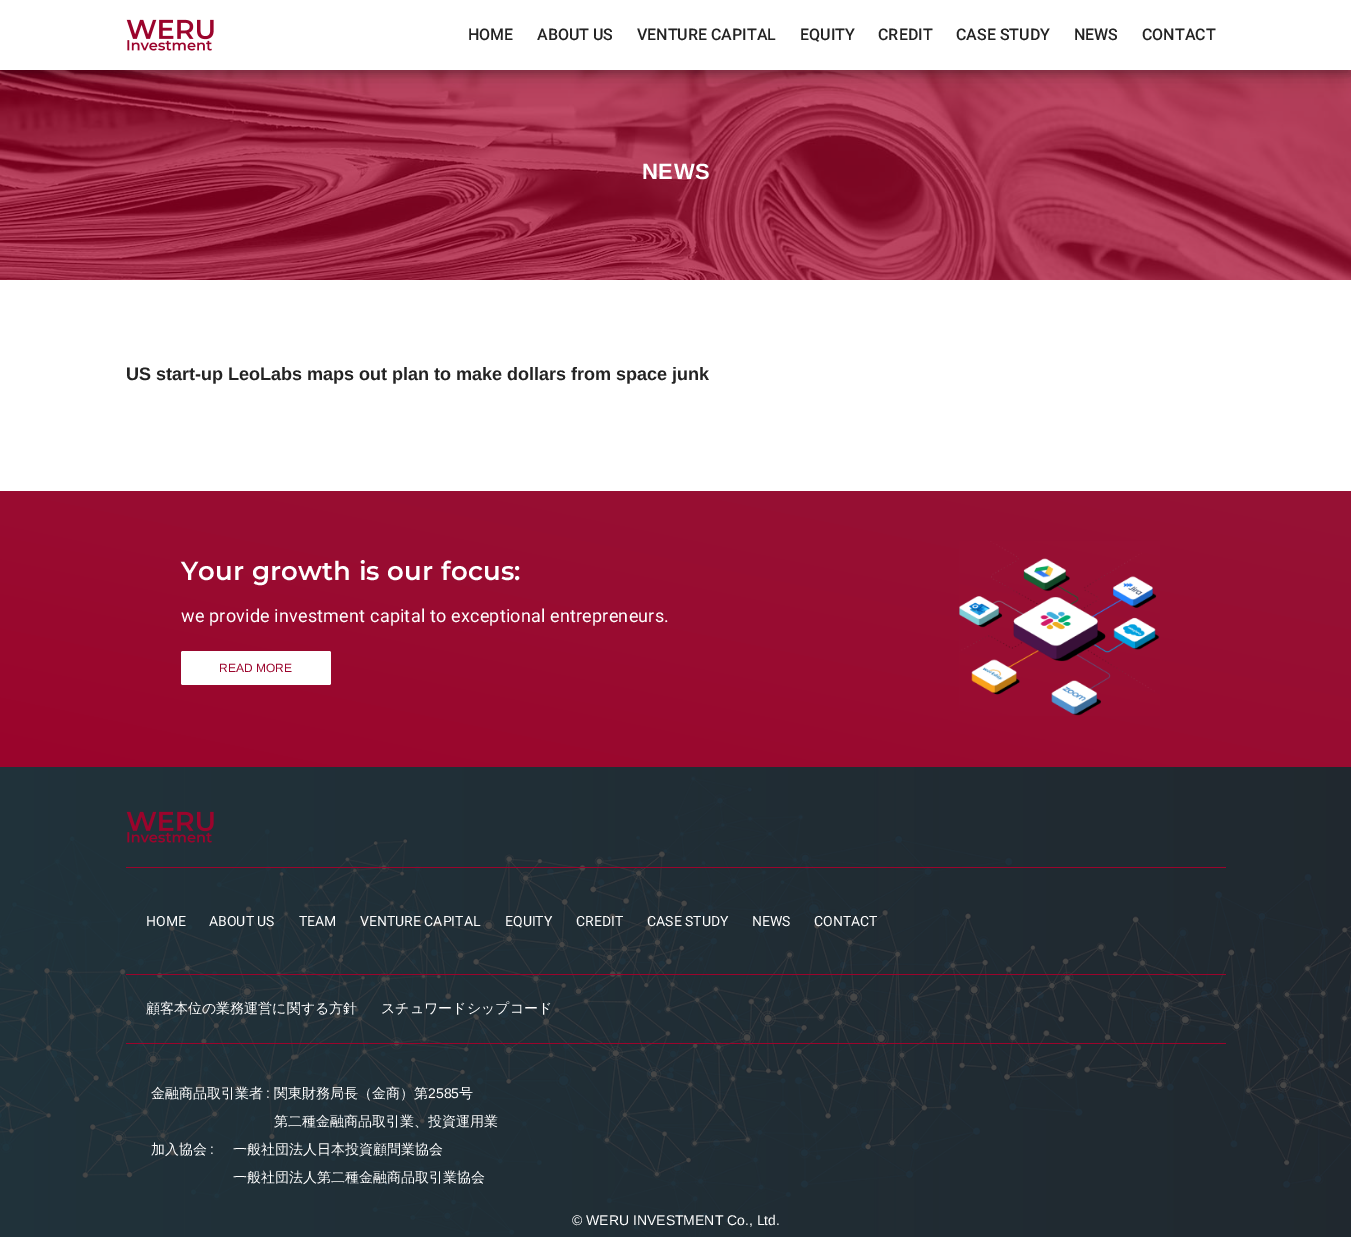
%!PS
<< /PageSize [1351 1237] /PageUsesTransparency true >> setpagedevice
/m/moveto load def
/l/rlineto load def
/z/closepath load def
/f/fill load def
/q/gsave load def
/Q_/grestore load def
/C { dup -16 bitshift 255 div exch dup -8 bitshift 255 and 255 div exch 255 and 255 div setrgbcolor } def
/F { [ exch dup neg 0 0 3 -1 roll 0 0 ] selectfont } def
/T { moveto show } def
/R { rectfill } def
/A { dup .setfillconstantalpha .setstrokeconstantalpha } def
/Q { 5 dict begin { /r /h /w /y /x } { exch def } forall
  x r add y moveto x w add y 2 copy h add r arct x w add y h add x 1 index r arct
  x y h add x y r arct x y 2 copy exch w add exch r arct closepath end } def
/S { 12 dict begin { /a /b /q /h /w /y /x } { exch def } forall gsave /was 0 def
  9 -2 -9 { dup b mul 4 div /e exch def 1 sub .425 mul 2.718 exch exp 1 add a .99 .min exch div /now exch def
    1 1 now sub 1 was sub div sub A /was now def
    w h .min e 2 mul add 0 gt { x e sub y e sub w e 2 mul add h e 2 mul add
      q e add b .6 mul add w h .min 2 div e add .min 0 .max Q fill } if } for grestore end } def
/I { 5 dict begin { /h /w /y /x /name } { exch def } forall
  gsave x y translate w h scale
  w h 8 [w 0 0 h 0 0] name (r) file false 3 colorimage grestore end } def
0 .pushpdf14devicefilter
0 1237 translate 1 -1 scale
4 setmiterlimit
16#FFFFFF C
0 0 1351 1237 R
(2.rgb) 0 70 1351 210 I
16#000000 C
0 6 1351 70 0 10 .19 S
0 4 1351 70 0 4 .2 S
16#FFFFFF C
0 0 1351 70 R
(1.rgb) 126 19 88 32 I
/Roboto-Medium 16 F
16#232323 C
(HOME) 468 40 T
(ABOUT US) 537 40 T
(VENTURE CAPITAL) 637 40 T
(EQUITY) 800 40 T
(CREDIT) 878 40 T
(CASE STUDY) 956 40 T
(NEWS) 1074 40 T
(CONTACT) 1142 40 T
/LiberationSans-Bold 22 F
16#FFFFFF C
642 179 m .5 0 (NEWS) ashow
/LiberationSans-Bold 18 F
16#232323 C
(US start-up LeoLabs maps out plan to make dollars from space junk) 126 380 T
q 0 491 m 1351 0 l 0 276 l -1351 0 l z clip newpath
<< /ShadingType 2 /ColorSpace /DeviceRGB /Coords [621 894 730 364] /Extend [true true] /Function << /FunctionType 3 /Domain [0 1] /Functions [<< /FunctionType 2 /Domain [0 1] /C0 [.608 .016 .173] /C1 [.604 .031 .18] /N 1 >> << /FunctionType 2 /Domain [0 1] /C0 [.604 .031 .18] /C1 [.6 .047 .192] /N 1 >> << /FunctionType 2 /Domain [0 1] /C0 [.6 .047 .192] /C1 [.592 .059 .2] /N 1 >> << /FunctionType 2 /Domain [0 1] /C0 [.592 .059 .2] /C1 [.588 .071 .208] /N 1 >>] /Bounds [.25 .5 .75] /Encode [0 1 0 1 0 1 0 1] >> >> shfill Q_
/Montserrat-SemiBold 26 F
16#FFFFFF C
181 580 m .2 0 (Your growth is our focus:) ashow
/Roboto-Regular 18 F
181 622 m .2 0 (we provide investment capital to exceptional entrepreneurs.) ashow
181 651 150 34 2 Q f
/LiberationSans-Regular 12 F
16#9B042C C
(READ MORE) 219 672 T
(3.rgb) 959 541 201 175 I
(4.rgb) 0 767 1351 470 I
126 867 1100 1 R
(5.rgb) 126 811 88 32 I
126 974 1100 1 R
/Roboto-Regular 14 F
16#FFFFFF C
(HOME) 146 926 T
(ABOUT US) 209 926 T
(TEAM) 299 926 T
(VENTURE CAPITAL) 360 926 T
(EQUITY) 505 926 T
(CREDIT) 576 926 T
(CASE STUDY) 647 926 T
(NEWS) 752 926 T
(CONTACT) 814 926 T
16#9B042C C
126 1043 1100 1 R
/WenQuanYiZenHei-Medium 14 F
16#FFFFFF C
(顧客本位の業務運営に関する方針) 146 1013 T
(スチュワードシップコード) 381 1013 T
(金融商品取引業者) 151 1098 T
/LiberationSans-Regular 14 F
(:) 266 1098 T
/WenQuanYiZenHei-Medium 14 F
(関東財務局長（金商）第) 274 1098 T
/LiberationSans-Regular 14 F
(2585) 428 1098 T
/WenQuanYiZenHei-Medium 14 F
(号) 459 1098 T
(第二種金融商品取引業、投資運用業) 274 1126 T
(加入協会) 151 1154 T
/LiberationSans-Regular 14 F
(:) 210 1154 T
/WenQuanYiZenHei-Medium 14 F
(一般社団法人日本投資顧問業協会) 233 1154 T
(一般社団法人第二種金融商品取引業協会) 233 1182 T
/LiberationSans-Regular 14 F
(© WERU INVESTMENT Co., Ltd.) 572 1225 T
.poppdf14devicefilter showpage
